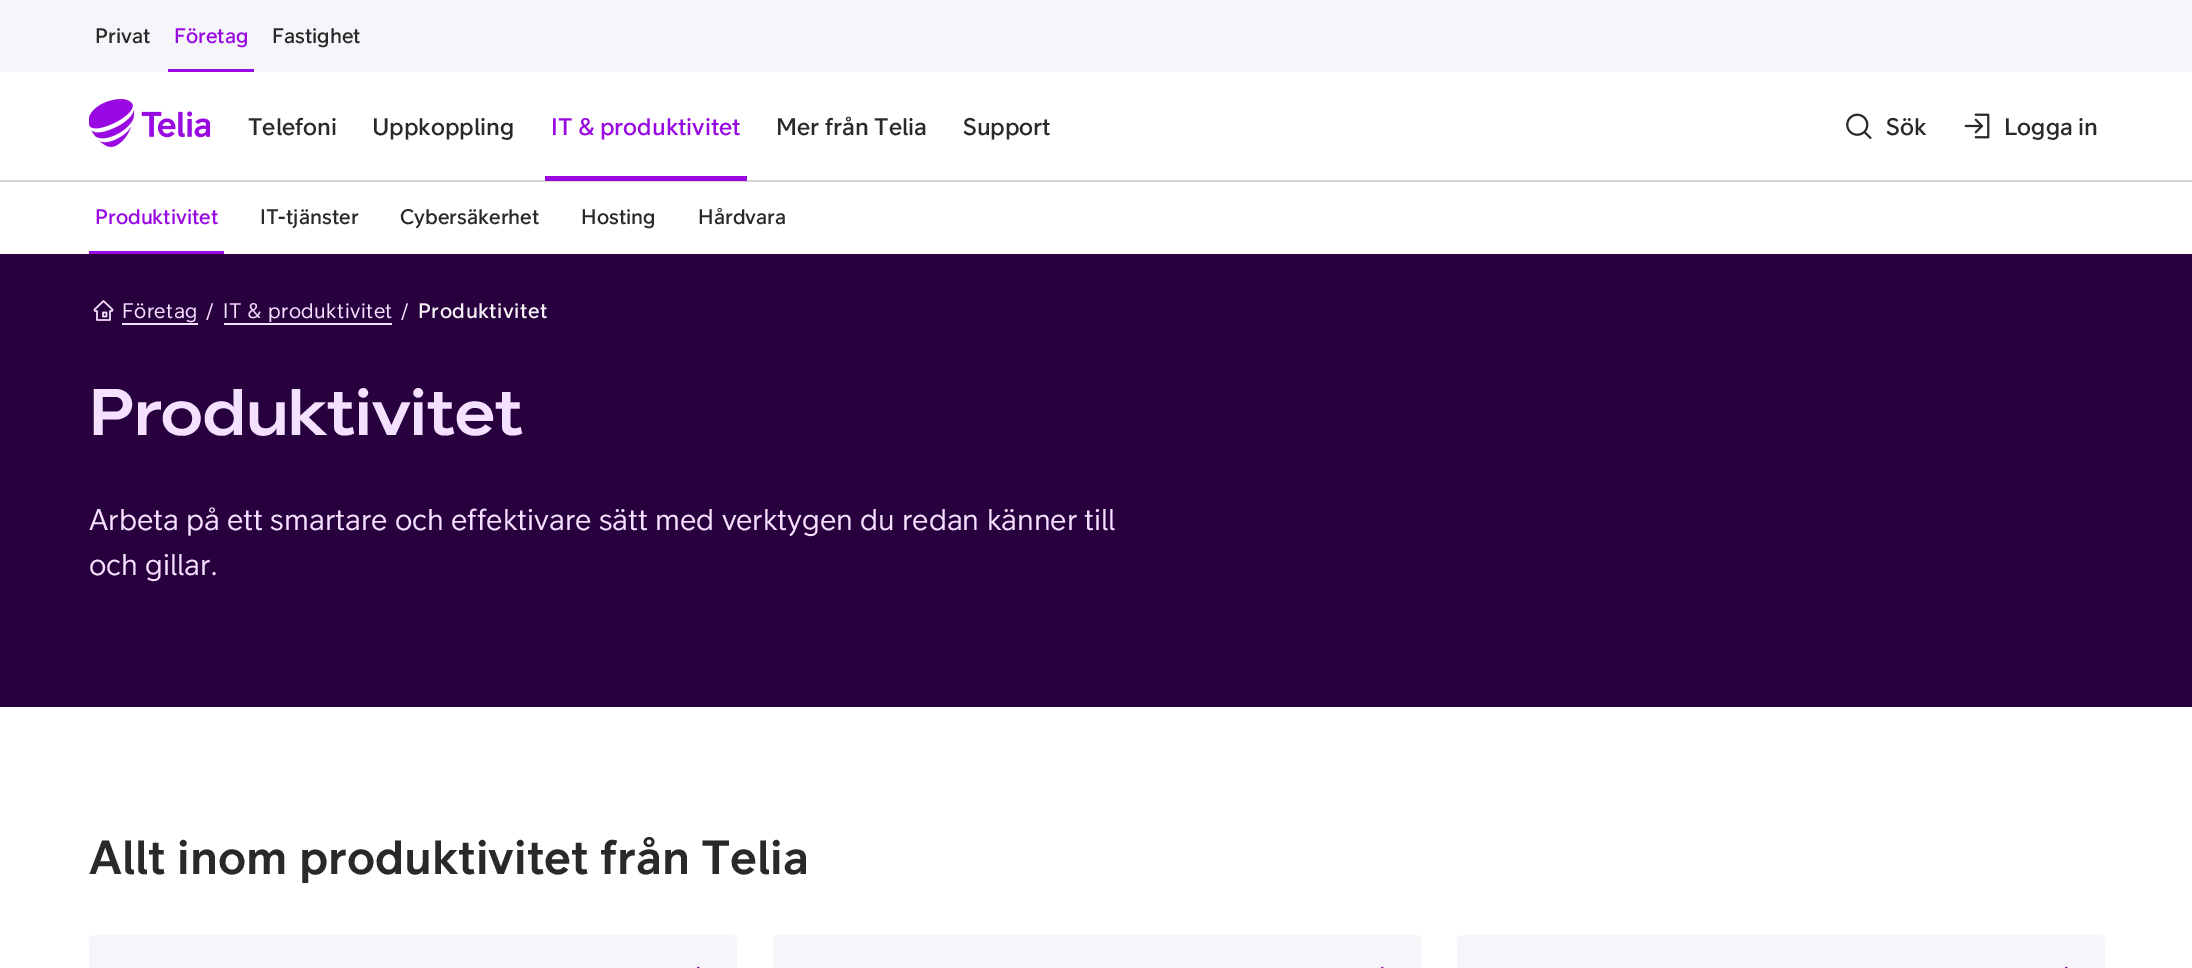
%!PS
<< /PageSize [2192 968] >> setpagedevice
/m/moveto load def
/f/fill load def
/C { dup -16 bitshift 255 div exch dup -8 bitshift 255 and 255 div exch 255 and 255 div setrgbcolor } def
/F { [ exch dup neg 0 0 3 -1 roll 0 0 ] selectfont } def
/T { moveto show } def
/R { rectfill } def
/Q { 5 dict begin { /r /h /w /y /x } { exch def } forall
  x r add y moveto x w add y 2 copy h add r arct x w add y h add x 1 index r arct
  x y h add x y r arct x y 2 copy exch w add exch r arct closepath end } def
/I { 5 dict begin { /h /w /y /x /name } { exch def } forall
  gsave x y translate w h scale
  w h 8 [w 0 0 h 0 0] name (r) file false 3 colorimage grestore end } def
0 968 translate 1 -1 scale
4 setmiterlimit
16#FFFFFF C
0 0 2192 968 R
16#F5F5FA C
0 0 2192 72 R
/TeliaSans-Medium 21 F
16#292929 C
(Privat) 95 43 T
16#990AE3 C
(Företag) 174 43 T
168 69 86 3 R
16#292929 C
(Fastighet) 272 43 T
(1.rgb) 89 99 122 48 I
/TeliaSans-Medium 24 F
(Telefoni) 248 135 T
(Uppkoppling) 372 135 T
16#990AE3 C
(IT & produktivitet) 551 135 T
16#D6D6D6 C
0 180 2192 2 R
16#990AE3 C
545 176 202 5 R
16#292929 C
(Mer från Telia) 776 135 T
(Support) 963 135 T
(2.rgb) 1846 113 26 26 I
(Sök) 1886 135 T
(3.rgb) 1964 113 26 26 I
(Logga in) 2004 135 T
/TeliaSans-Medium 21 F
16#990AE3 C
(Produktivitet) 95 224 T
89 251 135 3 R
16#292929 C
(IT-tjänster) 260 224 T
(Cybersäkerhet) 400 224 T
(Hosting) 581 224 T
(Hårdvara) 698 224 T
16#29003E C
0 254 2192 453 R
(4.rgb) 93 300 21 21 I
/TeliaSans-Regular 21 F
16#F4E0FF C
122 318 m .5 0 (Företag) ashow
122 323 76 2 R
(/) 206 318 T
223 318 m .5 0 (IT & produktivitet) ashow
224 323 168 2 R
(/) 401 318 T
/TeliaSans-Medium 21 F
16#F4F2F5 C
418 318 m .5 0 (Produktivitet) ashow
/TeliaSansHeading-Bold 65.75 F
16#F4E0FF C
(Produktivitet) 89 435 T
/TeliaSans-Regular 30 F
(Arbeta på ett smartare och effektivare sätt med verktygen du redan känner till) 89 530 T
(och gillar.) 89 575 T
/TeliaSans-Bold 48 F
16#292929 C
(Allt inom produktivitet från Telia) 89 874 T
16#F5F5FA C
89 935 648 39 6 Q f
(5.rgb) 697 966 3 2 I
773 935 648 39 6 Q f
(5.rgb) 1381 966 3 2 I
1457 935 648 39 6 Q f
(5.rgb) 2065 966 3 2 I
showpage
